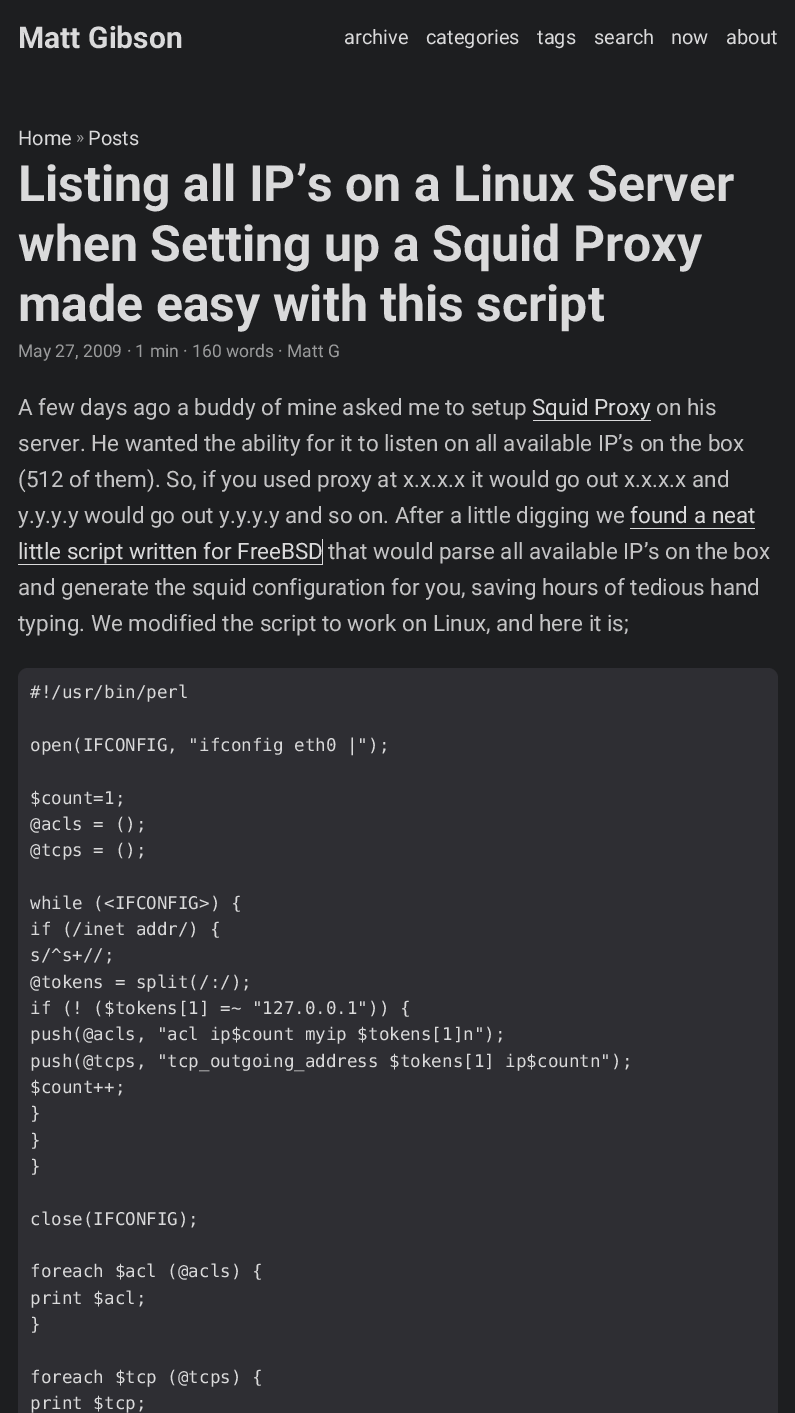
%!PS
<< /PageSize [795 1413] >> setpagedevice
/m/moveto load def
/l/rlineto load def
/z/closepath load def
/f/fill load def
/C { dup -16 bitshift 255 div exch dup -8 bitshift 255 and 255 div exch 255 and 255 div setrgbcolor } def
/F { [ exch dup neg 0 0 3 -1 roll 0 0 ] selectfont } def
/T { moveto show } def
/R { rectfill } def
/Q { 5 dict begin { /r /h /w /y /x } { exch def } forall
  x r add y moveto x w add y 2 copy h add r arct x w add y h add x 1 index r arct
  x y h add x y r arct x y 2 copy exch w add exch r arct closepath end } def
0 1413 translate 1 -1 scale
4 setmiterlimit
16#1D1E20 C
0 0 795 1413 R
/Roboto-Bold 30 F
16#DADADB C
(Matt Gibson) 18 48 T
/Roboto-Regular 20 F
(archive) 344 44 T
(categories) 426 44 T
(tags) 537 44 T
(search) 594 44 T
(now) 671 44 T
(about) 726 44 T
(Home) 18 145 T
/Roboto-Regular 17.5 F
16#9B9C9D C
(») 76 143 T
/Roboto-Regular 20 F
16#DADADB C
(Posts) 88 145 T
/Roboto-Bold 50 F
(Listing all IP’s on a Linux Server) 18 201 T
(when Setting up a Squid Proxy) 18 261 T
(made easy with this script) 18 321 T
/Roboto-Regular 17.5 F
16#9B9C9D C
(May 27, 2009 · 1 min · 160 words · Matt G) 18 357 T
/Roboto-Regular 22.5 F
16#C4C4C5 C
(A few days ago a buddy of mine asked me to setup) 18 415 T
16#DADADB C
(Squid Proxy) 532 415 T
533 420 118 1 R
16#C4C4C5 C
(on his) 656 415 T
(server. He wanted the ability for it to listen on all available IP’s on the box) 18 451 T
(\(512 of them\). So, if you used proxy at x.x.x.x it would go out x.x.x.x and) 18 487 T
(y.y.y.y would go out y.y.y.y and so on. After a little digging we) 18 523 T
16#DADADB C
(found a neat) 630 523 T
630 528 125 1 R
18 564 m 0 1 l 305 0 l 0 -26 l -1 0 l 0 25 l z f
(little script written for FreeBSD) 18 559 T
16#C4C4C5 C
(that would parse all available IP’s on the box) 328 559 T
(and generate the squid configuration for you, saving hours of tedious hand) 18 595 T
(typing. We modified the script to work on Linux, and here it is;) 18 631 T
16#2E2E33 C
18 668 760 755 10 Q f
/DejaVuSansMono-Regular 17.55 F
16#DADADB C
(#!/usr/bin/perl) 30 698 T
(open\(IFCONFIG, "ifconfig eth0 |"\);) 30 751 T
($count=1;) 30 804 T
(@acls = \(\);) 30 830 T
(@tcps = \(\);) 30 856 T
(while \(<IFCONFIG>\) {) 30 909 T
(if \(/inet addr/\) {) 30 935 T
(s/^s+//;) 30 961 T
(@tokens = split\(/:/\);) 30 988 T
(if \(! \($tokens[1] =~ "127.0.0.1"\)\) {) 30 1014 T
(push\(@acls, "acl ip$count myip $tokens[1]n"\);) 30 1040 T
(push\(@tcps, "tcp_outgoing_address $tokens[1] ip$countn"\);) 30 1067 T
($count++;) 30 1093 T
(}) 30 1119 T
(}) 30 1146 T
(}) 30 1172 T
(close\(IFCONFIG\);) 30 1225 T
(foreach $acl \(@acls\) {) 30 1277 T
(print $acl;) 30 1304 T
(}) 30 1330 T
(foreach $tcp \(@tcps\) {) 30 1383 T
(print $tcp;) 30 1409 T
showpage
